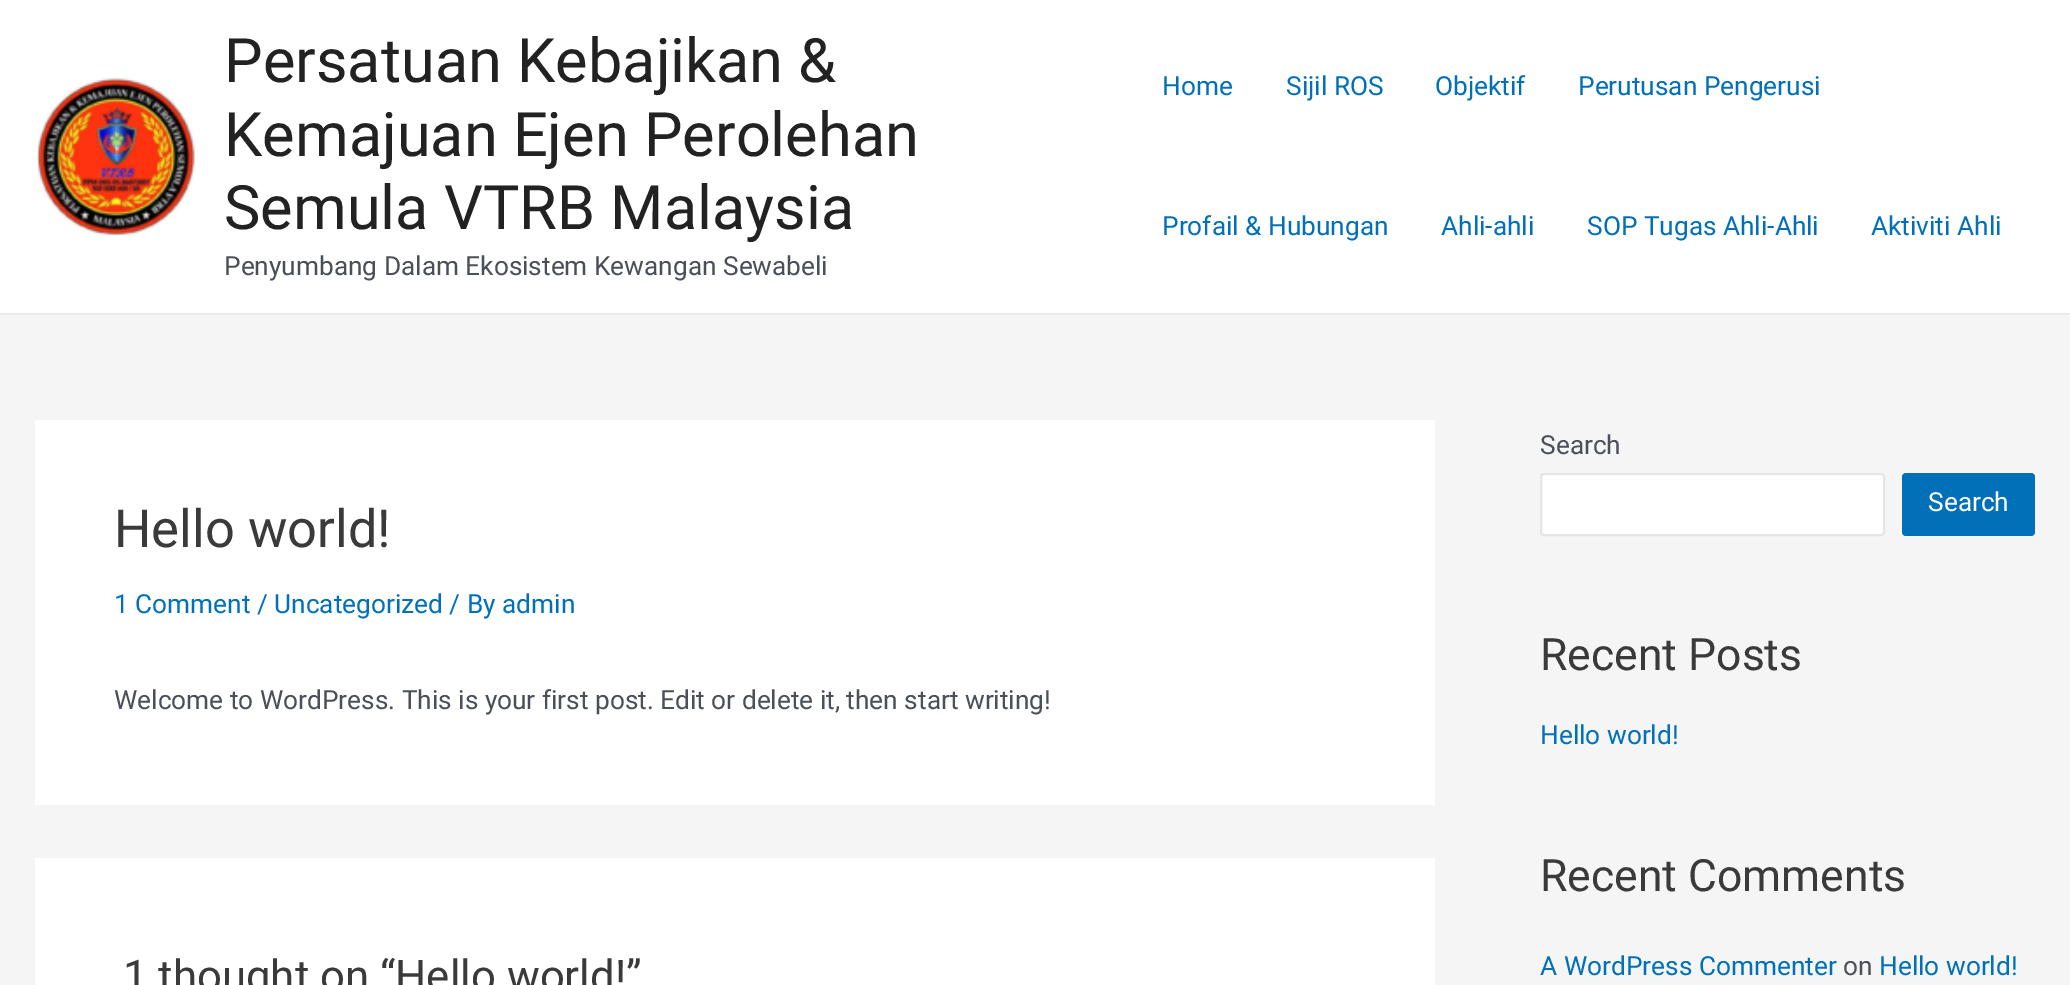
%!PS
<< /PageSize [2070 985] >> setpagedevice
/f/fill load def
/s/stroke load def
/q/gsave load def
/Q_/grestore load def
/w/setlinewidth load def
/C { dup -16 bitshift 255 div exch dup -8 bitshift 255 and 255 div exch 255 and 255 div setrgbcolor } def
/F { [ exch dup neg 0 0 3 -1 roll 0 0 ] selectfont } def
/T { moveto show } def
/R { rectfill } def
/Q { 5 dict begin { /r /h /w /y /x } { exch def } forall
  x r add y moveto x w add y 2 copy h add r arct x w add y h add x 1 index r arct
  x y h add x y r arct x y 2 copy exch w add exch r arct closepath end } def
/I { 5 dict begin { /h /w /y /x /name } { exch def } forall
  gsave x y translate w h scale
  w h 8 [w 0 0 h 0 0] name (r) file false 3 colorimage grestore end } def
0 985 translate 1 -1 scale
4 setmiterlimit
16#F5F5F5 C
0 0 2070 985 R
16#FFFFFF C
0 0 2070 313 R
16#EAEAEA C
0 313 2070 2 R
(1.rgb) 36 77 159 159 I
/Roboto-Regular 61.25 F
16#222222 C
(Persatuan Kebajikan &) 224 82 T
(Kemajuan Ejen Perolehan) 224 156 T
(Semula VTRB Malaysia) 224 229 T
/Roboto-Regular 26.25 F
16#4B4F58 C
(Penyumbang Dalam Ekosistem Kewangan Sewabeli) 224 275 T
16#0170B9 C
(Home) 1162 95 T
(Sijil ROS) 1286 95 T
(Objektif) 1435 95 T
(Perutusan Pengerusi) 1578 95 T
(Profail & Hubungan) 1162 235 T
(Ahli-ahli) 1441 235 T
(SOP Tugas Ahli-Ahli) 1587 235 T
(Aktiviti Ahli) 1871 235 T
16#FFFFFF C
35 420 1400 385 R
/Roboto-Regular 52.5 F
16#3A3A3A C
(Hello world!) 114 547 T
/Roboto-Regular 26.25 F
16#0170B9 C
(1 Comment / Uncategorized / By admin) 114 613 T
16#4B4F58 C
(Welcome to WordPress. This is your first post. Edit or delete it, then start writing!) 114 709 T
16#FFFFFF C
35 858 1400 127 R
/Roboto-Regular 43.75 F
16#3A3A3A C
(1 thought on “Hello world!”) 123 991 T
/Roboto-Regular 26.25 F
16#4B4F58 C
(Search) 1540 454 T
16#FFFFFF C
1541 474 343 61 3 Q q f Q_
16#E5E5E5 C
2 w
s
16#0170B9 C
1902 473 133 63 4 Q f
16#FFFFFF C
(Search) 1928 511 T
/Roboto-Regular 44.5 F
16#3A3A3A C
(Recent Posts) 1540 670 T
/Roboto-Regular 26.25 F
16#0170B9 C
(Hello world!) 1540 744 T
/Roboto-Regular 44.5 F
16#3A3A3A C
(Recent Comments) 1540 891 T
/Roboto-Regular 26.25 F
16#0170B9 C
(A WordPress Commenter) 1540 975 T
16#4B4F58 C
(on) 1843 975 T
16#0170B9 C
(Hello world!) 1879 975 T
showpage
